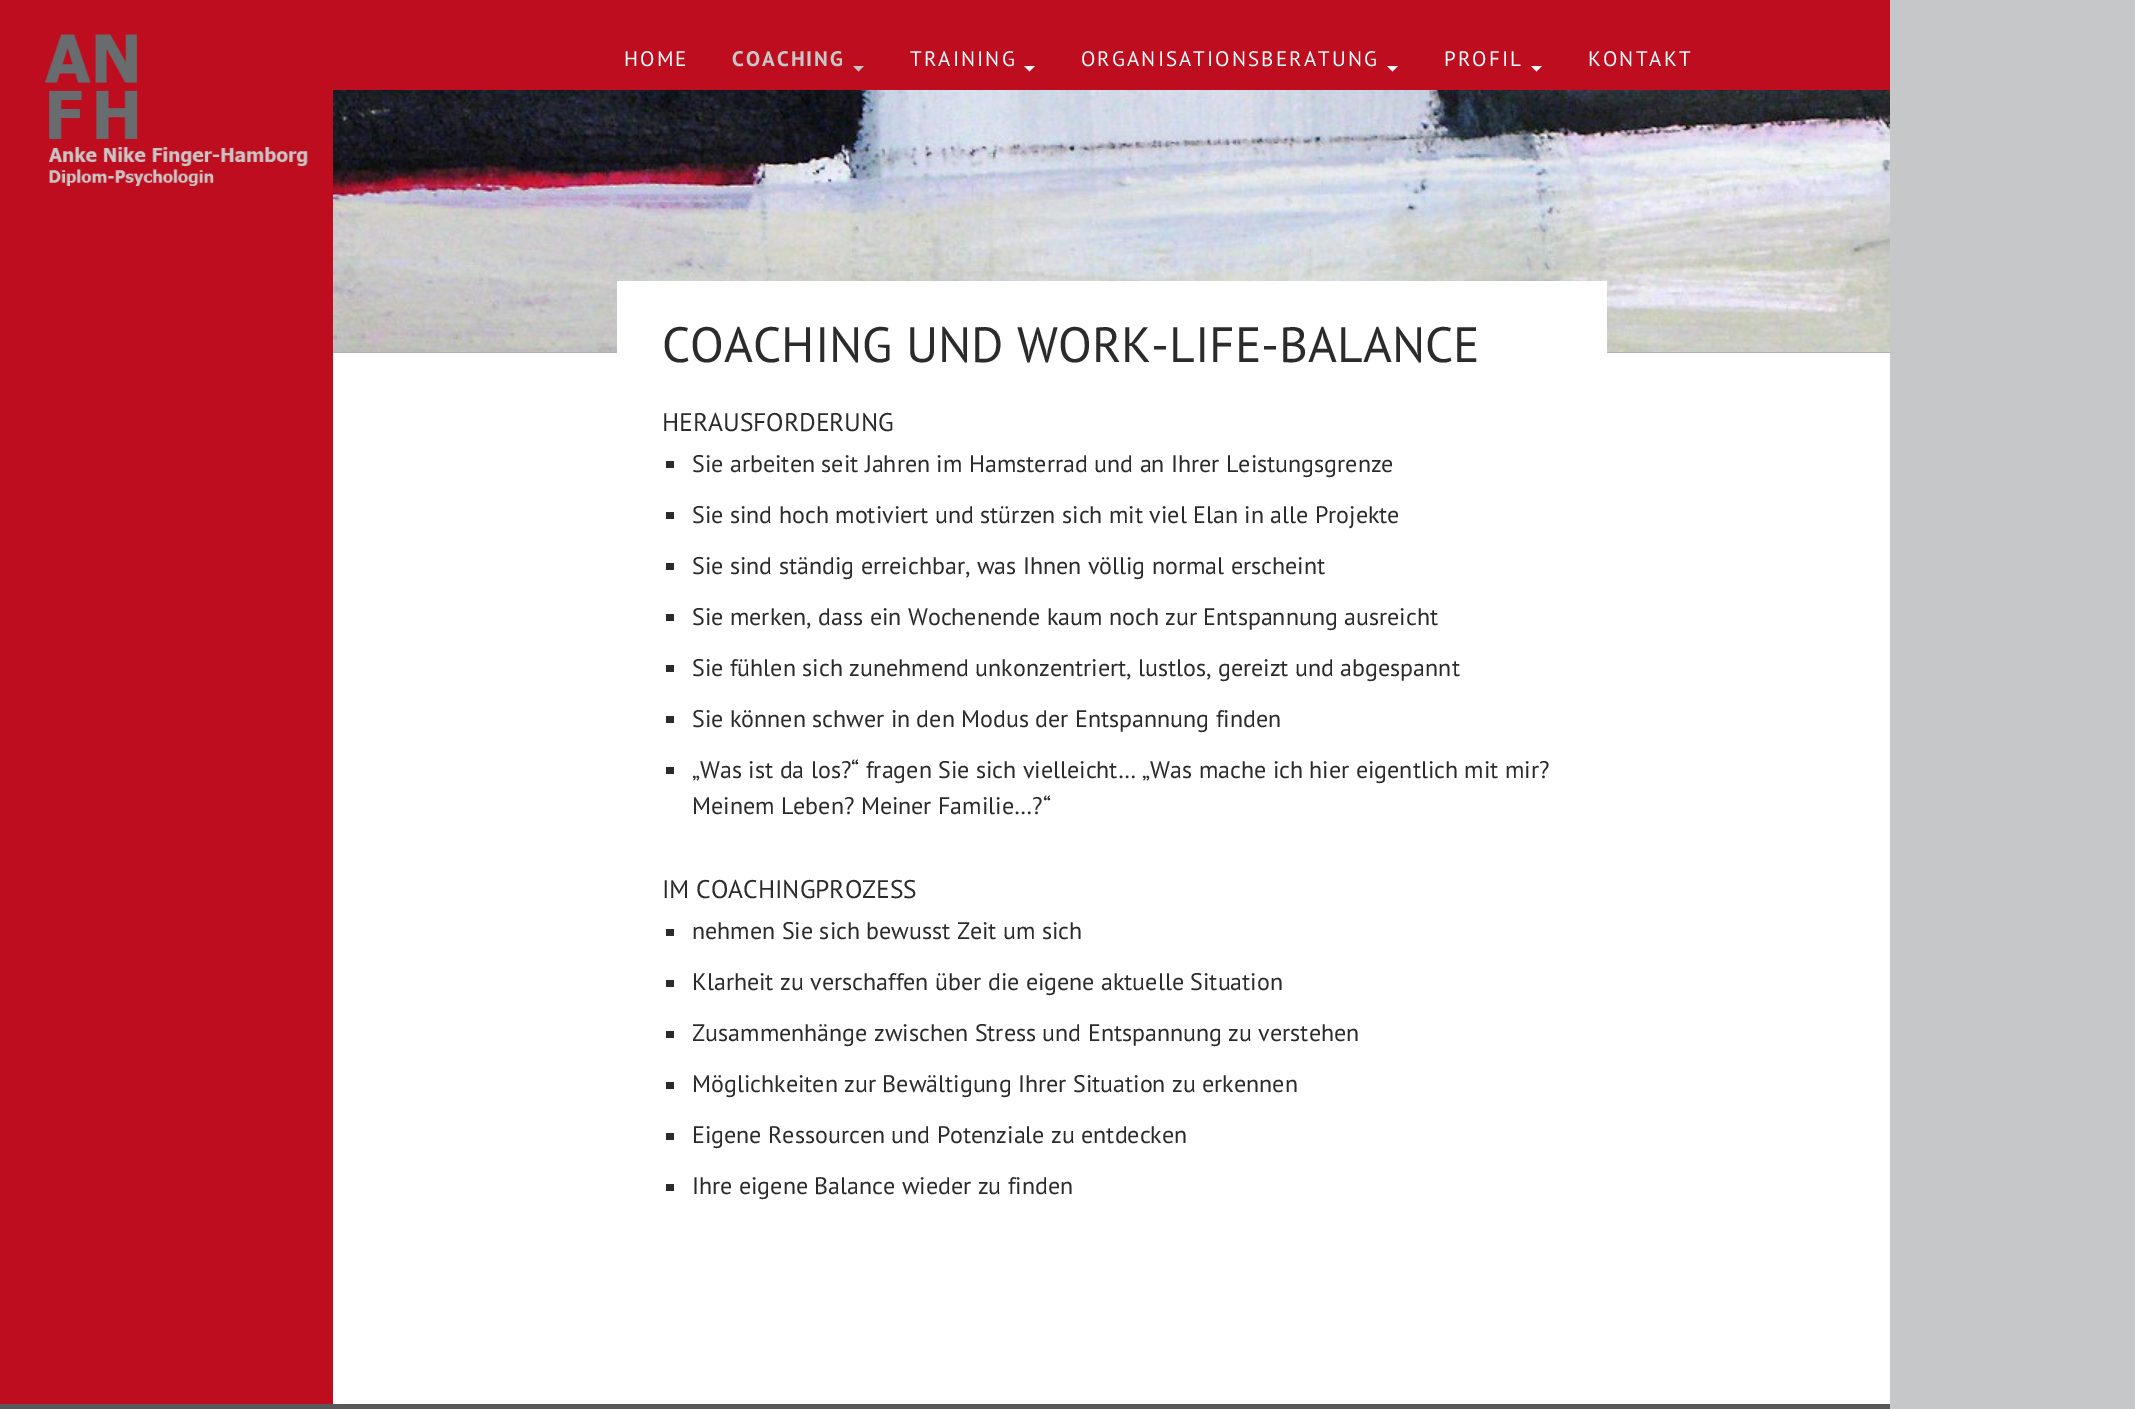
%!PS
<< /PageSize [2135 1409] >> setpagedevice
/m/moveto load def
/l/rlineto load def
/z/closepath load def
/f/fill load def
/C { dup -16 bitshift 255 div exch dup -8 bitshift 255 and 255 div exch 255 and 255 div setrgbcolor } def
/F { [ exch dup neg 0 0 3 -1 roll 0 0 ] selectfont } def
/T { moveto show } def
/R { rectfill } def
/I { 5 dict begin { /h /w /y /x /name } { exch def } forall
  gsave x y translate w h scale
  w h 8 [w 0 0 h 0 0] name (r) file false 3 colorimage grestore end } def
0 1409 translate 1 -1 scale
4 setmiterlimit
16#C5C7C8 C
0 0 2135 1409 R
16#FFFFFF C
333 353 1557 1051 R
16#BE0D1E C
0 0 1890 90 R
0 90 333 1314 R
(1.rgb) 45 34 263 152 I
/PTSans-Regular 21 F
16#FFFFFF C
624 66 m 2.1 0 (HOME) ashow
/PTSans-Bold 21 F
16#C5C7C8 C
732 66 m 2.1 0 (COACHING) ashow
853 66 m 5.5 5.5 l 5.5 -5.5 l z f
/PTSans-Regular 21 F
16#FFFFFF C
910 66 m 2.1 0 (TRAINING) ashow
1024 66 m 5.5 5.5 l 5.5 -5.5 l z f
1081 66 m 2.1 0 (ORGANISATIONSBERATUNG) ashow
1387 66 m 5.5 5.5 l 5.5 -5.5 l z f
1444 66 m 2.1 0 (PROFIL) ashow
1531 66 m 5.5 5.5 l 5.5 -5.5 l z f
1588 66 m 2.1 0 (KONTAKT) ashow
16#B2B2B2 C
333 352 1557 1 R
(2.rgb) 333 90 1557 262 I
16#FFFFFF C
617 281 990 72 R
/PTSans-Regular 49.5 F
16#2B2B2B C
(COACHING UND WORK-LIFE-BALANCE) 662 362 T
/PTSans-Regular 25.5 F
(HERAUSFORDERUNG) 662 431 T
666 461 8 7 R
/PTSans-Regular 24 F
(Sie arbeiten seit Jahren im Hamsterrad und an Ihrer Leistungsgrenze) 692 472 T
666 512 8 7 R
(Sie sind hoch motiviert und stürzen sich mit viel Elan in alle Projekte) 692 523 T
666 563 8 7 R
(Sie sind ständig erreichbar, was Ihnen völlig normal erscheint) 692 574 T
666 614 8 7 R
(Sie merken, dass ein Wochenende kaum noch zur Entspannung ausreicht) 692 625 T
666 665 8 7 R
(Sie fühlen sich zunehmend unkonzentriert, lustlos, gereizt und abgespannt) 692 676 T
666 716 8 7 R
(Sie können schwer in den Modus der Entspannung finden) 692 727 T
666 767 8 7 R
(„Was ist da los?“ fragen Sie sich vielleicht… „Was mache ich hier eigentlich mit mir?) 692 778 T
(Meinem Leben? Meiner Familie…?“) 692 814 T
/PTSans-Regular 25.5 F
(IM COACHINGPROZESS) 662 898 T
666 929 8 7 R
/PTSans-Regular 24 F
(nehmen Sie sich bewusst Zeit um sich) 692 939 T
666 980 8 7 R
(Klarheit zu verschaffen über die eigene aktuelle Situation) 692 990 T
666 1031 8 7 R
(Zusammenhänge zwischen Stress und Entspannung zu verstehen) 692 1041 T
666 1082 8 7 R
(Möglichkeiten zur Bewältigung Ihrer Situation zu erkennen) 692 1092 T
666 1133 8 7 R
(Eigene Ressourcen und Potenziale zu entdecken) 692 1143 T
666 1184 8 7 R
(Ihre eigene Balance wieder zu finden) 692 1194 T
16#58585A C
0 1404 1890 5 R
showpage
